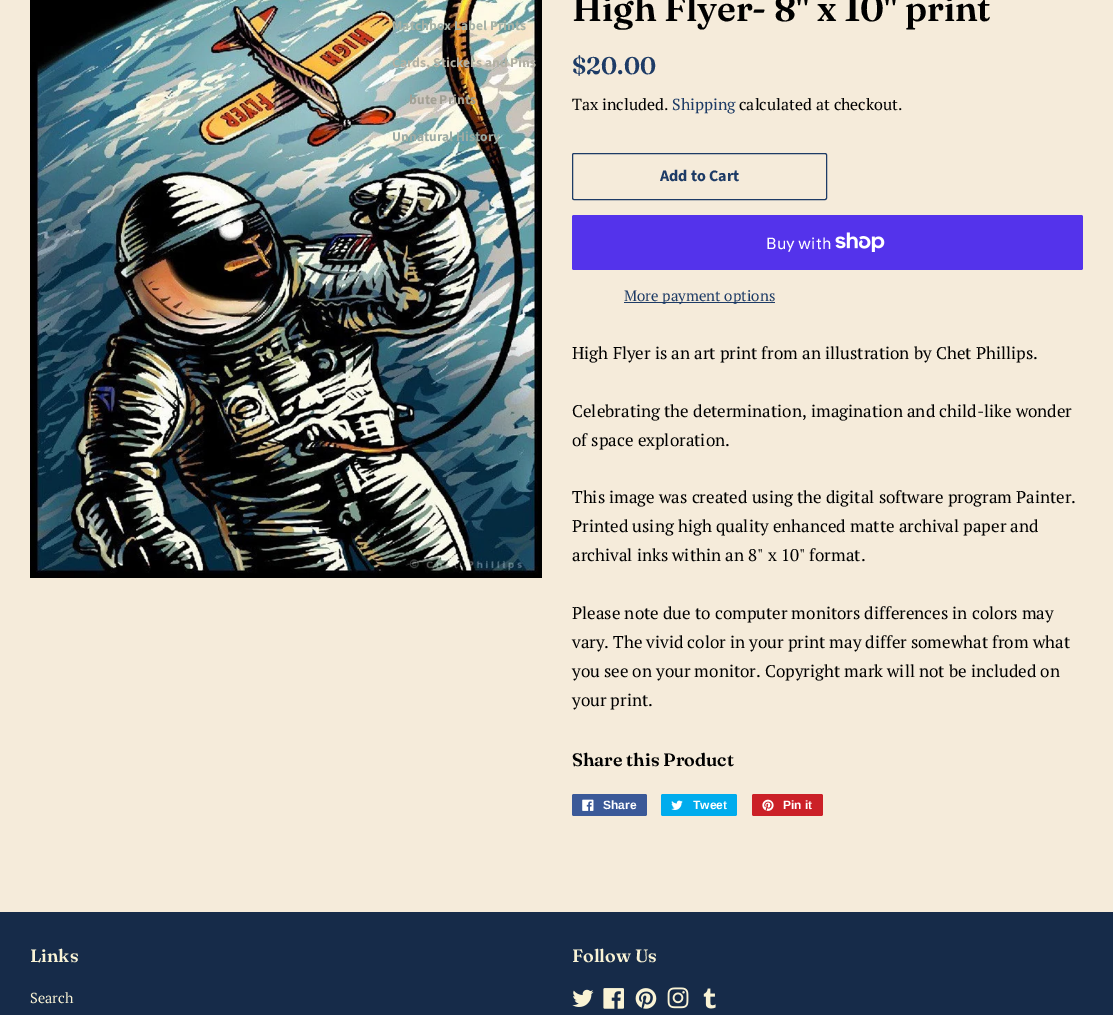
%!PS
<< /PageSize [1113 1015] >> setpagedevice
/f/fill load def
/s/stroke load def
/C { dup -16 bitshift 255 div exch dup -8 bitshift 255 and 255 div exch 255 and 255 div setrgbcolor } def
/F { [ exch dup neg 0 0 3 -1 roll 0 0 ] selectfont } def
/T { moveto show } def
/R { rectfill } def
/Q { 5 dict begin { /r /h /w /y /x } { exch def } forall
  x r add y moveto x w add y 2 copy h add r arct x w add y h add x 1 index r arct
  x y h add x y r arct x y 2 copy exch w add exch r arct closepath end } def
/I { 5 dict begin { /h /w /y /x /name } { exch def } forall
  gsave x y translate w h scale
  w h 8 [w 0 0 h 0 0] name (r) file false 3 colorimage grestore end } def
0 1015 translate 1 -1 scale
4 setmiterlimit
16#F5EBDA C
0 0 1113 1015 R
(1.rgb) 30 0 512 578 I
/SourceSansPro-Bold 13.6 F
16#A8B3A7 C
(Matchbox Label Prints) 392 30 T
16#B3B1A4 C
(Cards, Stickers and Pins) 392 67 T
16#A19F93 C
(bute Prints) 409 104 T
16#9DABA4 C
(Unnatural History) 392 141 T
/Fraunces-SemiBold 36 F
16#000000 C
(High Flyer- 8" x 10" print) 572 21 T
/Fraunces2-SemiBold 24 F
16#1D3B66 C
($20.00) 572 74 T
/PTSerif-Regular 16 F
16#000000 C
(Tax included.) 572 110 T
16#1D3B66 C
(Shipping) 672 110 T
16#000000 C
(calculated at checkout.) 739 110 T
16#1D3B66 C
572.5 153.5 254 46 1.5 Q s
/SourceSansPro-Bold 16 F
(Add to Cart) 660 181 T
16#5433EB C
572 215 511 55 2 Q f
/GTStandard-Regular 16 F
16#FFFFFF C
(Buy with) 766 249 T
(2.rgb) 835 232 50 20 I
16#1D3B66 C
624 302 151 1 R
/PTSerif-Regular 15 F
(More payment options) 624 301 T
/PTSerif-Regular 17 F
16#000000 C
(High Flyer is an art print from an illustration by Chet Phillips.) 572 359 T
(Celebrating the determination, imagination and child-like wonder) 572 417 T
(of space exploration.) 572 446 T
(This image was created using the digital software program Painter.) 572 503 T
(Printed using high quality enhanced matte archival paper and) 572 532 T
(archival inks within an 8" x 10" format.) 572 561 T
(Please note due to computer monitors differences in colors may) 572 619 T
(vary. The vivid color in your print may differ somewhat from what) 572 648 T
(you see on your monitor. Copyright mark will not be included on) 572 677 T
(your print.) 572 706 T
/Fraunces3-SemiBold 18 F
(Share this Product) 572 766 T
16#3B5998 C
572 794 75 22 2 Q f
(3.rgb) 582 799 12 12 I
/LiberationSans-Bold 12 F
16#FFFFFF C
(Share) 603 809 T
16#00ACED C
661 794 76 22 2 Q f
(4.rgb) 671 800 12 10 I
16#FFFFFF C
(Tweet) 693 809 T
16#CB2027 C
752 794 71 22 2 Q f
(5.rgb) 762 799 12 12 I
16#FFFFFF C
(Pin it) 783 809 T
16#162B49 C
0 912 1113 103 R
/Fraunces3-SemiBold 18 F
16#F9F3D5 C
(Links) 30 962 T
/PTSerif-Regular 14.5 F
(Search) 30 1003 T
/Fraunces3-SemiBold 18 F
(Follow Us) 572 962 T
(6.rgb) 572 989 22 18 I
(7.rgb) 603 988 21 21 I
(8.rgb) 635 988 22 21 I
(9.rgb) 667 987 22 22 I
(10.rgb) 703 988 13 21 I
showpage
